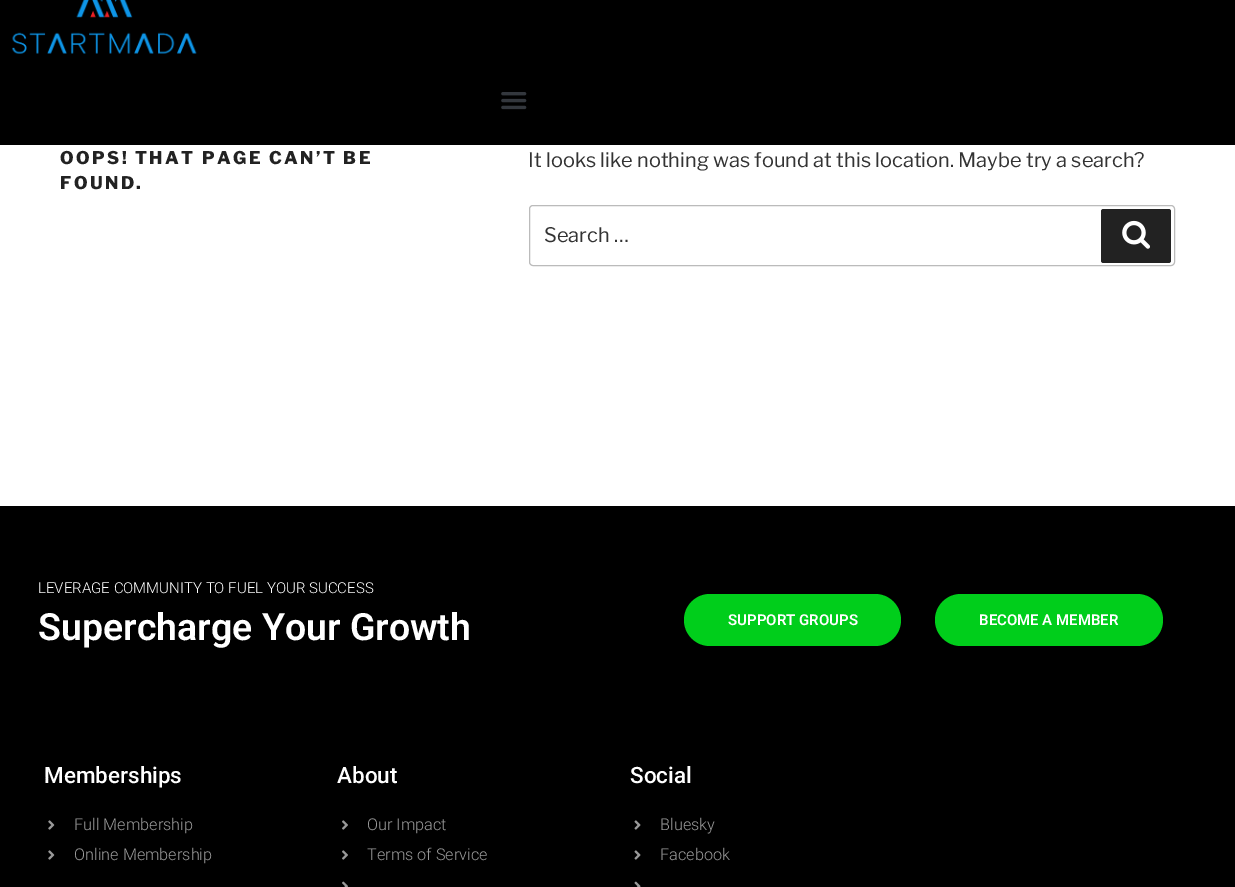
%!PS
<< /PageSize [1235 887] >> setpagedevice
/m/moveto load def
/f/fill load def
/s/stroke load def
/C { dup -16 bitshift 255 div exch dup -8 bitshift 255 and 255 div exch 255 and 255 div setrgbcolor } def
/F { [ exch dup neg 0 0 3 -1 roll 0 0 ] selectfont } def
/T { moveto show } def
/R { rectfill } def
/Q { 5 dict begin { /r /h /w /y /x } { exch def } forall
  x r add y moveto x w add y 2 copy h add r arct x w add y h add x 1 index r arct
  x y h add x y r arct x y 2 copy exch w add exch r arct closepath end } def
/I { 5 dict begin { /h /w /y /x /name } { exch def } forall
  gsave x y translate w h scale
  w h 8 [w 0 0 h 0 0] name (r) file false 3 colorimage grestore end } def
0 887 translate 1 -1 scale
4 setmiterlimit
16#FFFFFF C
0 0 1235 887 R
16#000000 C
0 0 1235 145 R
(1.rgb) 12 0 185 54 I
(2.rgb) 501 92 26 18 I
/LibreFranklin-Thin 17.5 F
16#222222 C
60 164 m 2.45 0 (OOPS! THAT PAGE CAN’T BE) ashow
60 189 m 2.45 0 (FOUND.) ashow
/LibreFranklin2-Thin 20 F
16#333333 C
(It looks like nothing was found at this location. Maybe try a search?) 528 167 T
16#BBBBBB C
529.5 205.5 645 60 3.5 Q s
16#333333 C
(Search …) 544 242 T
16#222222 C
1101 209 70 54 2.5 Q f
(3.rgb) 1122 220 28 29 I
16#000000 C
0 506 1235 381 R
/Roboto-Light 15 F
16#FFFFFF C
(LEVERAGE COMMUNITY TO FUEL YOUR SUCCESS) 38 593 T
/Roboto-SemiBold 37.5 F
(Supercharge Your Growth) 38 640 T
16#00CE1B C
684 594 217 52 26 Q f
/Roboto-SemiBold 15 F
16#FFFFFF C
(SUPPORT GROUPS) 728 625 T
16#00CE1B C
935 594 228 52 26 Q f
16#FFFFFF C
(BECOME A MEMBER) 979 625 T
/Roboto-Medium 22.5 F
(Memberships) 44 783 T
(4.rgb) 48 820 7 10 I
/Roboto-Light 16.25 F
16#999999 C
(Full Membership) 74 830 T
(4.rgb) 48 850 7 10 I
(Online Membership) 74 860 T
/Roboto-Medium 22.5 F
16#FFFFFF C
(About) 337 783 T
(5.rgb) 342 820 6 10 I
/Roboto-Light 16.25 F
16#999999 C
(Our Impact) 367 830 T
(5.rgb) 342 850 6 10 I
(Terms of Service) 367 860 T
(6.rgb) 342 881 6 6 I
/Roboto-Medium 22.5 F
16#FFFFFF C
(Social) 630 783 T
(7.rgb) 634 820 7 10 I
/Roboto-Light 16.25 F
16#999999 C
(Bluesky) 660 830 T
(7.rgb) 634 850 7 10 I
(Facebook) 660 860 T
(8.rgb) 634 881 7 6 I
showpage
